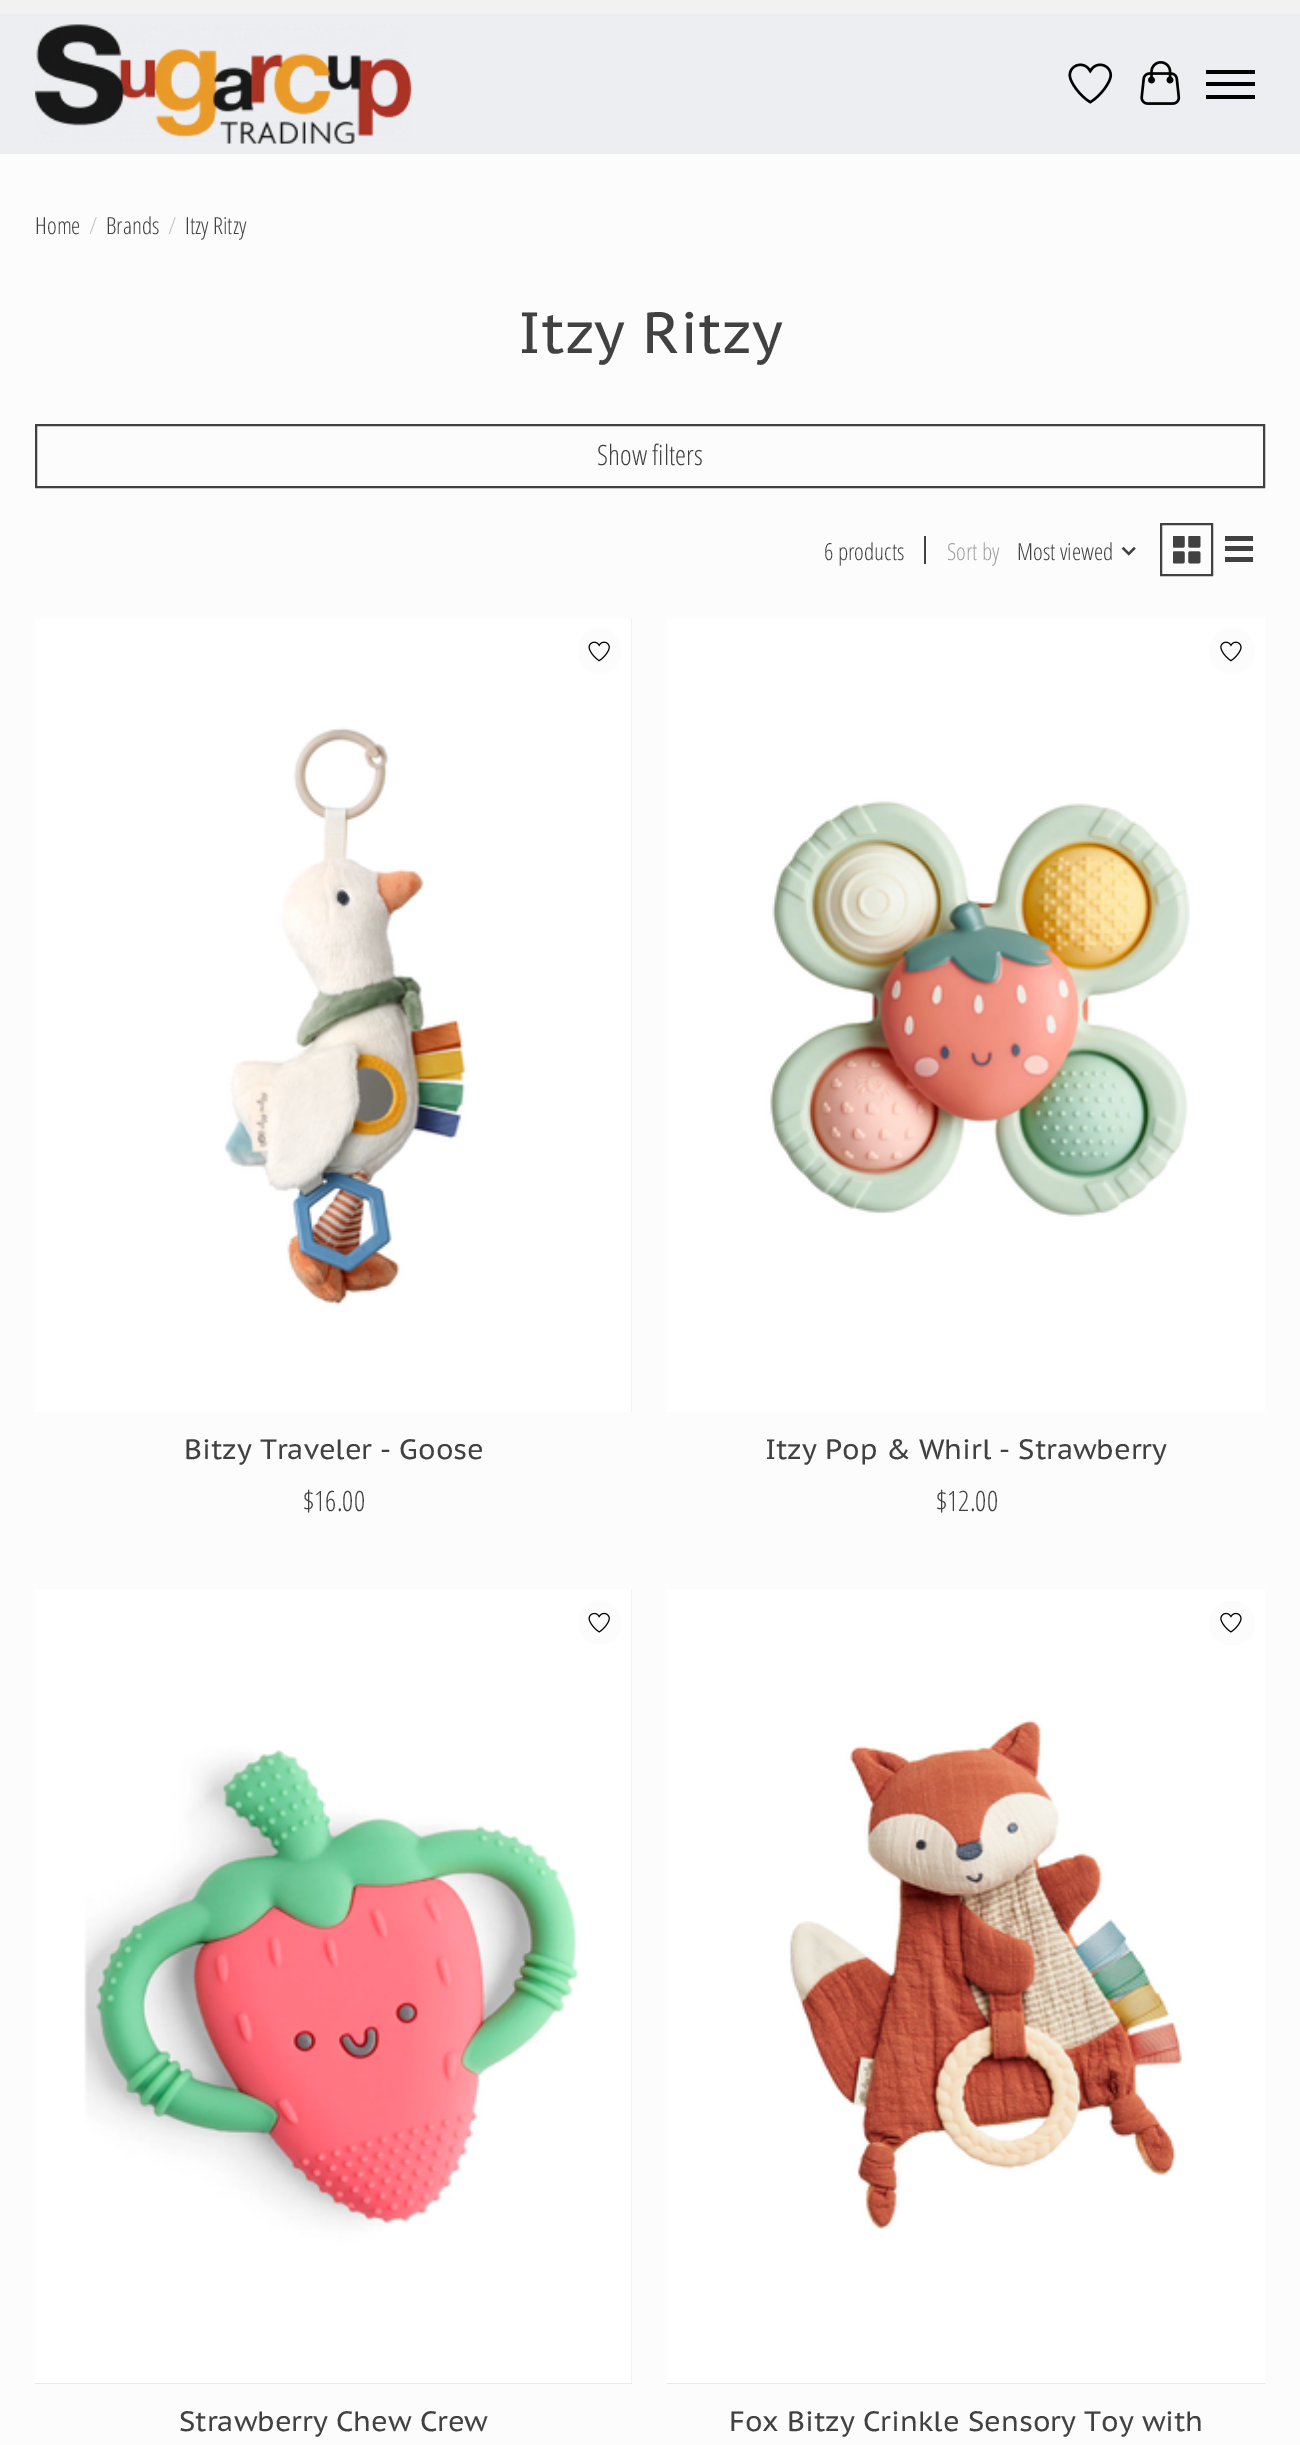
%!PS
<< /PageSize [1300 2445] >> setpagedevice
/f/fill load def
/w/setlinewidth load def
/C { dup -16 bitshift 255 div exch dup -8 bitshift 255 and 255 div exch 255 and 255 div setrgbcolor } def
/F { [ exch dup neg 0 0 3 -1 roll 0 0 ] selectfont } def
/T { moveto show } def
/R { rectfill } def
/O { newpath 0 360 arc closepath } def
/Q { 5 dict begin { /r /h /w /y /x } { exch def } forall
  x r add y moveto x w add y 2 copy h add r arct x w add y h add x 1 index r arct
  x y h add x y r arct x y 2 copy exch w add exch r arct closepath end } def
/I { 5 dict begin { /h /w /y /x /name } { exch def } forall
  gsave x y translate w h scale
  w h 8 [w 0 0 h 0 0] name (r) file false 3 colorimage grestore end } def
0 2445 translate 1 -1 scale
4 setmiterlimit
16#FCFCFC C
0 0 1300 2445 R
16#ECEEF2 C
0 14 1300 140 R
16#F2F2F2 C
0 0 1300 14 R
(1.rgb) 35 24 377 120 I
(2.rgb) 1068 63 45 41 I
(3.rgb) 1140 61 41 44 I
16#000000 C
1206 82 49 4 R
1206 70 49 4 R
1206 95 49 4 R
/OpenSansCondensed-Light 23.5 F
16#414141 C
(Home) 35 234 T
16#C4C4C4 C
(/) 89 234 T
16#414141 C
(Brands) 106 234 T
16#C4C4C4 C
(/) 168 234 T
16#414141 C
(Itzy Ritzy) 185 234 T
/PTSansCaption-Regular 58 F
(Itzy Ritzy) 518 353 T
2 w
36 425 1228 62 rectstroke
/OpenSansCondensed-Light 28 F
(Show filters) 597 465 T
/OpenSansCondensed-Light 23.5 F
(6 products) 824 560 T
924 536 2 28 R
16#9F9F9F C
(Sort by) 947 560 T
16#414141 C
(Most viewed) 1017 560 T
(4.rgb) 1121 546 15 10 I
1161 524 51 51 rectstroke
(5.rgb) 1173 536 28 28 I
1225 536 28 5 R
1225 546 28 5 R
1225 557 28 5 R
16#E1E1E1 C
631 618 1 794 R
(6.rgb) 35 618 597 794 I
16#FCFCFC C
578 628 43 46 21.5 Q f
(7.rgb) 588 641 22 21 I
/PTSansCaption-Regular 28 F
16#414141 C
(Bitzy Traveler - Goose) 184 1459 T
/OpenSansCondensed-Light 28 F
($16.00) 303 1511 T
(8.rgb) 667 618 598 794 I
16#FCFCFC C
1232 651 23 O f
(9.rgb) 1220 641 22 21 I
/PTSansCaption-Regular 28 F
16#414141 C
(Itzy Pop & Whirl - Strawberry) 765 1459 T
/OpenSansCondensed-Light 28 F
($12.00) 936 1511 T
16#E1E1E1 C
35 1589 597 795 R
(10.rgb) 35 1589 597 795 I
16#FCFCFC C
578 1601 43 44 21.5 Q f
(11.rgb) 588 1612 22 21 I
/PTSansCaption-Regular 28 F
16#414141 C
(Strawberry Chew Crew) 179 2431 T
16#E1E1E1 C
667 2383 598 1 R
(12.rgb) 667 1589 598 795 I
16#FCFCFC C
1209 1601 46 44 22 Q f
(13.rgb) 1220 1612 22 21 I
16#414141 C
(Fox Bitzy Crinkle Sensory Toy with) 729 2431 T
showpage
